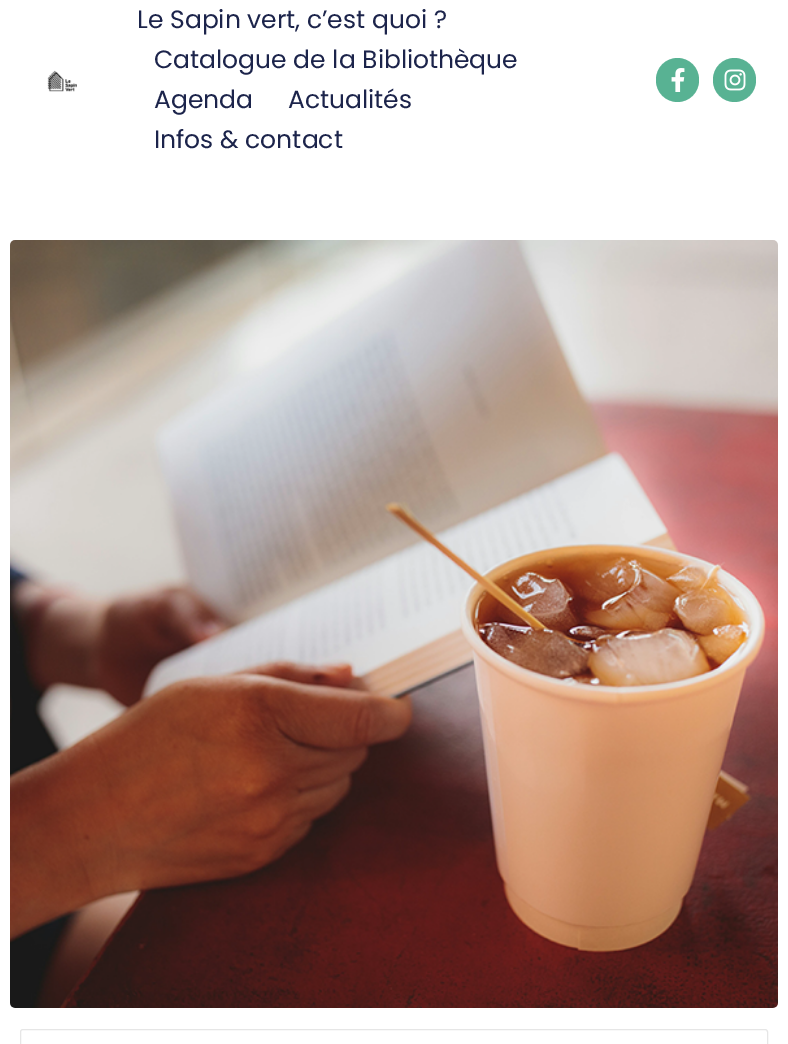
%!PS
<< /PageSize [788 1044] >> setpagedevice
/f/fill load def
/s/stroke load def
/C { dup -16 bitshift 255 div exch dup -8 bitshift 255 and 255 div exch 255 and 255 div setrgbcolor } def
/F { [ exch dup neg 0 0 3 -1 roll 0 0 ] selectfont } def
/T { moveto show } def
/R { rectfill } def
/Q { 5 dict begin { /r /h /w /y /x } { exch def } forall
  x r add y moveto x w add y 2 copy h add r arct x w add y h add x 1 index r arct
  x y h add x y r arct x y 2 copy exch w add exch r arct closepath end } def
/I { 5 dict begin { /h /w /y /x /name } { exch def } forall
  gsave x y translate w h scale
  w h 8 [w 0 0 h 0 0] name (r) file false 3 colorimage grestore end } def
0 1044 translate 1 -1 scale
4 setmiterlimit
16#FFFFFF C
0 0 788 1044 R
(1.rgb) 47 70 30 22 I
/Poppins-Regular 25 F
16#1C244B C
(Le Sapin vert, c’est quoi ?) 137 28 T
(Catalogue de la Bibliothèque) 154 68 T
(Agenda) 154 108 T
(Actualités) 288 108 T
(Infos & contact) 154 148 T
16#58B293 C
656 58 43 44 21.5 Q f
(2.rgb) 671 68 14 24 I
713 58 43 44 21.5 Q f
(3.rgb) 724 69 22 22 I
(4.rgb) 10 240 768 768 I
16#E6E6E6 C
20.5 1029.5 747 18 2.5 Q s
showpage
